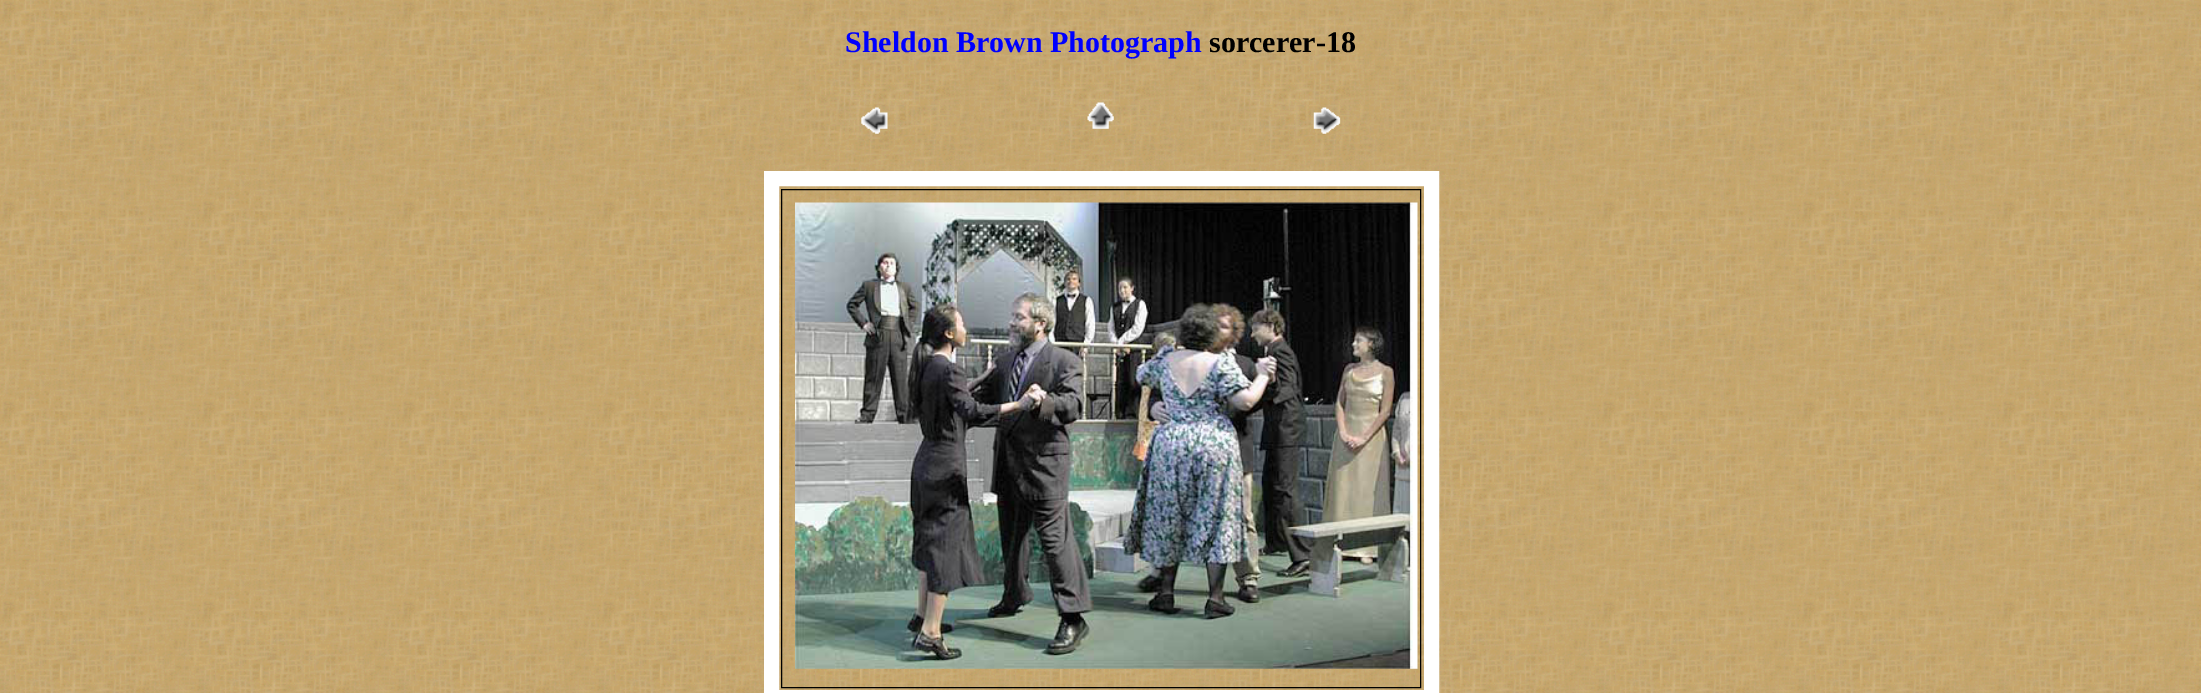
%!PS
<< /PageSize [2201 693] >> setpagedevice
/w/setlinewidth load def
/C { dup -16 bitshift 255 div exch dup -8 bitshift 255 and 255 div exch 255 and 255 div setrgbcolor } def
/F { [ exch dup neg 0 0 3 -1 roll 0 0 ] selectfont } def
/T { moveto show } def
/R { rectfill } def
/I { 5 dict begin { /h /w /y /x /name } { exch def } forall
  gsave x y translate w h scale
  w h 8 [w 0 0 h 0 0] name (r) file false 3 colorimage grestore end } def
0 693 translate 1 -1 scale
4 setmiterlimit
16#FFFFFF C
0 0 2201 693 R
(1.rgb) 0 0 2201 693 I
/LiberationSerif-Bold 30 F
16#0000FF C
(Sheldon Brown Photograph) 845 52 T
16#000000 C
(sorcerer-18) 1209 52 T
(2.rgb) 861 107 27 27 I
(3.rgb) 1087 102 27 27 I
(4.rgb) 1313 107 28 27 I
16#FFFFFF C
15 w
771.5 178.5 660 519 rectstroke
16#000000 C
1 w
781.5 189.5 639 498 rectstroke
(5.rgb) 795 202 623 467 I
showpage
